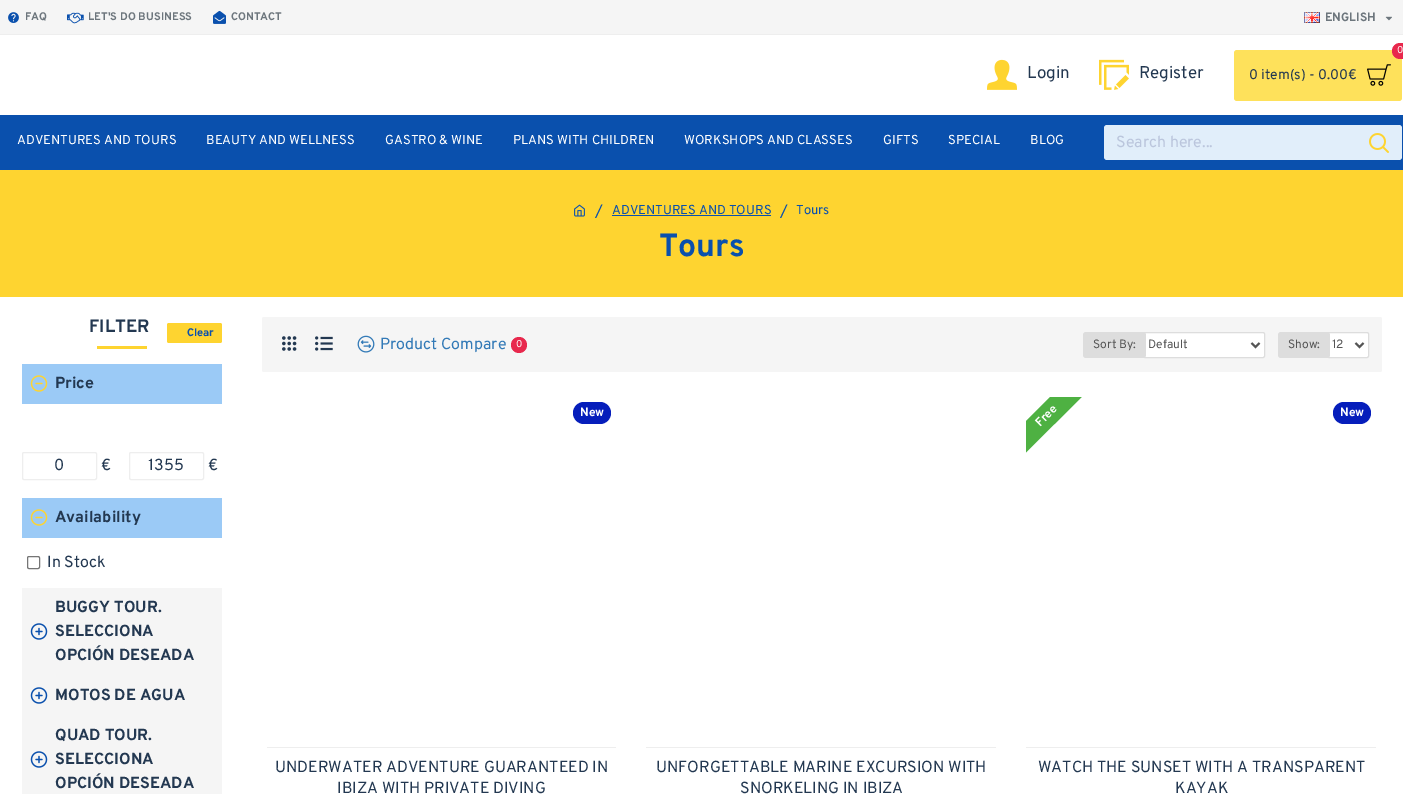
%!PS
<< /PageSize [1403 794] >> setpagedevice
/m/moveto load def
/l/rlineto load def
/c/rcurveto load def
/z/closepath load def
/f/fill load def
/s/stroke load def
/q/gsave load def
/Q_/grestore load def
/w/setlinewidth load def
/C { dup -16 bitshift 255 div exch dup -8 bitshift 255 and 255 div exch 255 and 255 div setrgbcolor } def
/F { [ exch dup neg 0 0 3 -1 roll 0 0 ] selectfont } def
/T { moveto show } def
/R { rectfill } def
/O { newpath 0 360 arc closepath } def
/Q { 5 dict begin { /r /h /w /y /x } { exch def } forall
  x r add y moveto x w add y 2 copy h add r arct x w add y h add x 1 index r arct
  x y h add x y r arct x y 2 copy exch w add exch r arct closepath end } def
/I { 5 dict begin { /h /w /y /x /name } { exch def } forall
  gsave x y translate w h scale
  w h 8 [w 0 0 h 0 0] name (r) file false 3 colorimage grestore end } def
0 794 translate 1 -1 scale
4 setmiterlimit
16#FFFFFF C
0 0 1403 794 R
16#F5F5F5 C
0 0 1403 34 R
16#EEEEEE C
0 34 1403 1 R
(1.rgb) 8 12 11 11 I
/Overpass-Bold 11 F
16#6D767D C
(FAQ) 25 20 T
(2.rgb) 67 12 17 12 I
(LET'S DO BUSINESS) 88 20 T
(3.rgb) 213 10 13 14 I
(CONTACT) 231 20 T
(4.rgb) 1304 12 16 11 I
/Overpass-Bold 12 F
(ENGLISH) 1325 21 T
(5.rgb) 1385 16 7 5 I
(6.rgb) 987 59 30 31 I
/Overpass-Regular 17 F
16#233851 C
(Login) 1027 78 T
(7.rgb) 1099 59 30 31 I
(Register) 1139 78 T
16#FEE15B C
1234 50 168 51 3 Q f
16#E8284D C
1392 43 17 16 8 Q f
/Overpass-Regular 10 F
16#FFFFFF C
(0) 1397 53 T
/Overpass-Regular 14 F
16#233851 C
(0 item\(s\) - 0.00€) 1249 79 T
(8.rgb) 1367 64 24 22 I
16#0A50AD C
0 115 1403 55 R
/Overpass-Regular 13 F
16#FFFFFF C
(ADVENTURES AND TOURS) 17 144 T
(BEAUTY AND WELLNESS) 206 144 T
(GASTRO & WINE) 385 144 T
(PLANS WITH CHILDREN) 513 144 T
(WORKSHOPS AND CLASSES) 684 144 T
(GIFTS) 883 144 T
(SPECIAL) 948 144 T
(BLOG) 1030 144 T
16#E1EEFA C
1107 125 m 250 0 l 0 35 l -250 0 l -1.5 0 -3 -1.5 -3 -3 c 0 -29 l 0 -1.5 1.5 -3 3 -3 c z f
/Overpass-Regular 16 F
16#BBC6DD C
(Search here...) 1116 147 T
16#E1EEFA C
1357 125 m 42 0 l 1.5 0 3 1.5 3 3 c 0 29 l 0 1.5 -1.5 3 -3 3 c -42 0 l z f
(9.rgb) 1369 133 20 20 I
16#FED430 C
0 170 1403 127 R
(10.rgb) 574 204 11 13 I
16#0A50AD C
(/) 595 216 T
/Overpass-Regular 13 F
(ADVENTURES AND TOURS) 612 214 T
612 215 159 1 R
/Overpass-Regular 16 F
(/) 780 216 T
/Overpass-Regular 13 F
(Tours) 796 214 T
/Overpass-Bold 32 F
(Tours) 659 256 T
/Overpass-Bold 18 F
16#233851 C
(FILTER) 89 332 T
16#FED430 C
167 323 55 20 2 Q f
/Overpass-Bold 11 F
16#0A50AD C
(Clear) 187 336 T
16#FED430 C
97 346 50 3 R
16#9BCAF6 C
22 364 200 40 R
(11.rgb) 30 375 18 17 I
/Overpass-Bold 16 F
16#233851 C
(Price) 55 388 T
16#EEEEEE C
22.5 452.5 74 27 1.5 Q s
/Overpass-Regular 16 F
16#233851 C
(0) 54 470 T
(€) 101 470 T
16#EEEEEE C
129.5 452.5 74 27 1.5 Q s
16#233851 C
(1355) 148 470 T
(€) 208 470 T
16#9BCAF6 C
22 498 200 40 R
(11.rgb) 30 509 18 17 I
/Overpass-Bold 16 F
16#233851 C
(Availability) 55 522 T
16#767676 C
27.5 556.5 12 12 1.5 Q s
/Overpass-Regular 16 F
16#233851 C
(In Stock) 47 567 T
16#F5F5F5 C
22 588 200 206 R
/Overpass-Bold 16 F
16#233851 C
(BUGGY TOUR.) 55 612 T
(12.rgb) 30 623 18 17 I
(SELECCIONA) 55 636 T
(OPCIÓN DESEADA) 55 660 T
(12.rgb) 30 687 18 17 I
(MOTOS DE AGUA) 55 700 T
(QUAD TOUR.) 55 740 T
(12.rgb) 30 751 18 17 I
(SELECCIONA) 55 764 T
(OPCIÓN DESEADA) 55 788 T
16#F5F5F5 C
262 317 1120 55 2 Q f
(13.rgb) 282 336 15 15 I
(14.rgb) 315 336 18 15 I
(15.rgb) 357 335 18 18 I
/Overpass-Regular 16 F
16#337AB7 C
(Product Compare) 380 349 T
16#E8284D C
519 345 8 O f
/Overpass-Regular 10 F
16#FFFFFF C
(0) 516 347 T
1143.5 332.5 121 25 1.5 Q q f Q_
16#DDDDDD C
s
1083 332 63 26 3 Q f
/Overpass-Regular 12 F
16#555555 C
(Sort By:) 1093 348 T
2 w
1251.5 343 m 4 4 l 4 -4 l s
(Default) 1148 348 T
16#FFFFFF C
1327.5 332.5 41 25 1.5 Q q f Q_
16#DDDDDD C
1 w
s
1278 332 52 26 3 Q f
16#555555 C
(Show:) 1288 348 T
2 w
1355.5 343 m 4 4 l 4 -4 l s
(12) 1332 348 T
16#061EBB C
573 402 38 22 11 Q f
/Overpass-Bold 12 F
16#FFFFFF C
(New) 580 416 T
16#EEEEEE C
267 747 349 1 R
/Overpass-Regular 16 F
16#233851 C
(UNDERWATER ADVENTURE GUARANTEED IN) 275 772 T
(IBIZA WITH PRIVATE DIVING) 337 793 T
16#EEEEEE C
646 747 350 1 R
16#233851 C
(UNFORGETTABLE MARINE EXCURSION WITH) 656 772 T
(SNORKELING IN IBIZA) 740 793 T
q
1026 397 350 350 rectclip
16#4EB142 C
940 507 m 197 -197 l 4 -4 11 -4 16 0 c 4 5 4 12 0 16 c -197 196 l -4 5 -11 5 -16 0 c -4 -4 -4 -11 0 -15 c z f
Q_
/Overpass-Bold 12 F
16#FFFFFF C
q 1040 427 translate -45 rotate 0 0 m (Free) show Q_
16#061EBB C
1333 402 38 22 11 Q f
16#FFFFFF C
(New) 1340 416 T
16#EEEEEE C
1026 747 350 1 R
/Overpass-Regular 16 F
16#233851 C
(WATCH THE SUNSET WITH A TRANSPARENT) 1038 772 T
(KAYAK) 1175 793 T
showpage
